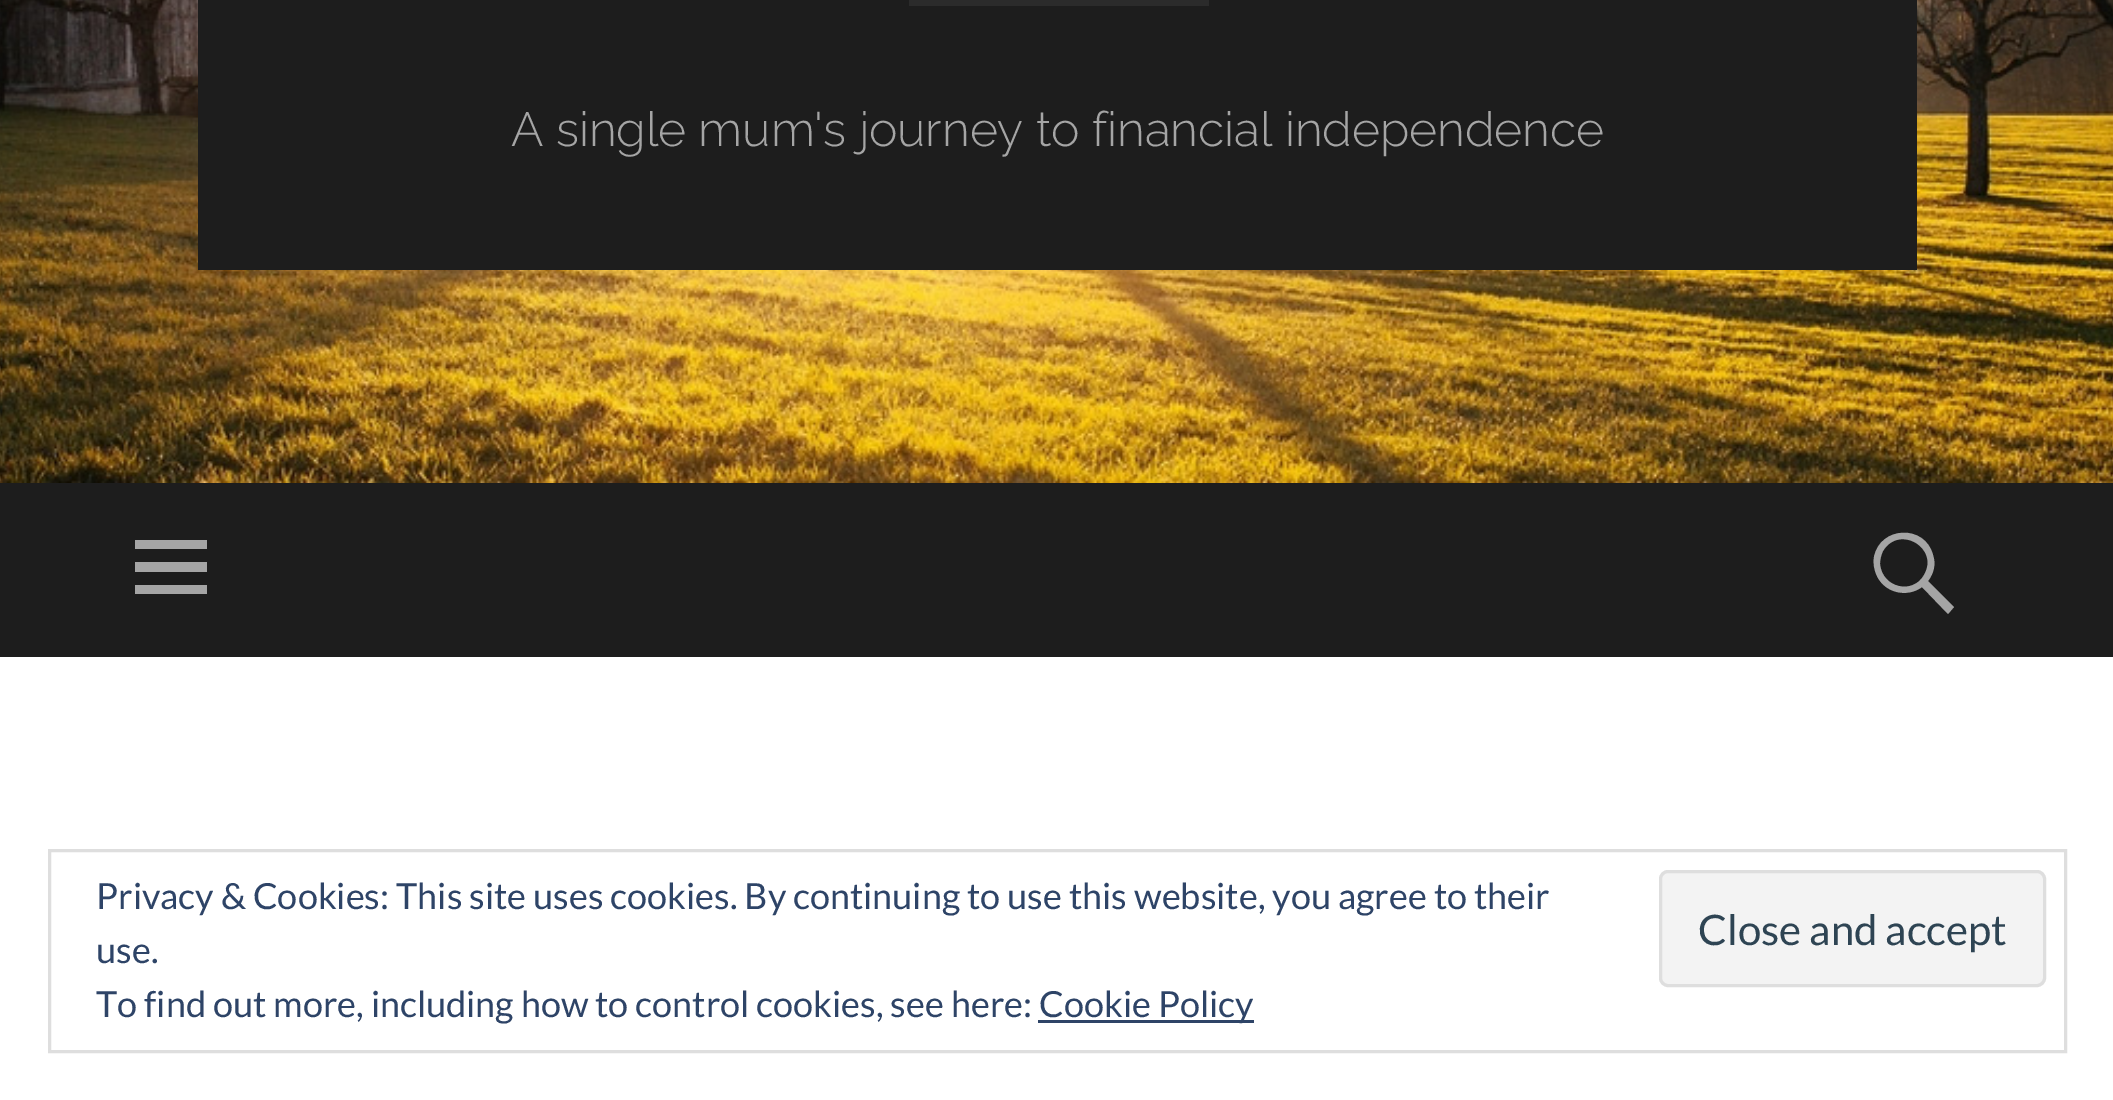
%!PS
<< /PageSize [2113 1100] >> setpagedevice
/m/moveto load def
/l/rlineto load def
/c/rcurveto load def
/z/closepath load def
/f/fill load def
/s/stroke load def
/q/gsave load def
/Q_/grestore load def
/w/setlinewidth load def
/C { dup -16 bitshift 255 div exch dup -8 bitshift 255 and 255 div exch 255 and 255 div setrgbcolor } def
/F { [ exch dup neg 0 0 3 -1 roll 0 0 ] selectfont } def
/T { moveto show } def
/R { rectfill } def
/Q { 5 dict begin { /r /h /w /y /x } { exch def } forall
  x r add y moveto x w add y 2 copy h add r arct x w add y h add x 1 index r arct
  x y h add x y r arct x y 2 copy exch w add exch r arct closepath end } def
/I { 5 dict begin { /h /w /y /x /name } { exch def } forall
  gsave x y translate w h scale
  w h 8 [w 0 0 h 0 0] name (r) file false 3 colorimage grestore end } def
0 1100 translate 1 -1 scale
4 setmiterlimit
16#FFFFFF C
0 0 2113 1100 R
(1.rgb) 0 0 2113 483 I
16#1D1D1D C
198 0 1719 270 R
16#2B2B2B C
909 0 300 6 R
/Raleway-Light 48 F
16#A5A5A5 C
(A single mum's journey to financial independence) 511 146 T
16#1D1D1D C
0 483 2113 174 R
16#A5A5A5 C
135 594 m 0 -9 l 72 0 l 0 9 l z 135 540 m 72 0 l 0 9 l -72 0 l z 135 572 m 0 -10 l 72 0 l 0 10 l z f
1954 607 m -6 7 l -26 -27 l -15 11 -37 6 -45 -11 c -3 -6 -4 -13 -3 -19 c 6 -31 51 -33 59 -2 c 3 9 1 18 -5 26 c z 1883 551 m -2 4 -3 9 -3 13 c 2 24 33 31 44 11 c 16 -27 -25 -51 -41 -24 c z f
16#DEDEDE C
3 w
49.5 850.5 2016 201 rectstroke
/Lato-Regular 36 F
16#2E4467 C
(Privacy & Cookies: This site uses cookies. By continuing to use this website, you agree to their) 96 909 T
(use.) 96 963 T
16#F3F3F3 C
1660.5 871.5 384 114 7.5 Q q f Q_
16#DEDEDE C
s
/Lato-Regular 42 F
16#2E4453 C
(Close and accept) 1698 945 T
/Lato-Regular 36 F
16#2E4467 C
(To find out more, including how to control cookies, see here:) 96 1017 T
1038 1020 216 3 R
(Cookie Policy) 1039 1017 T
showpage
